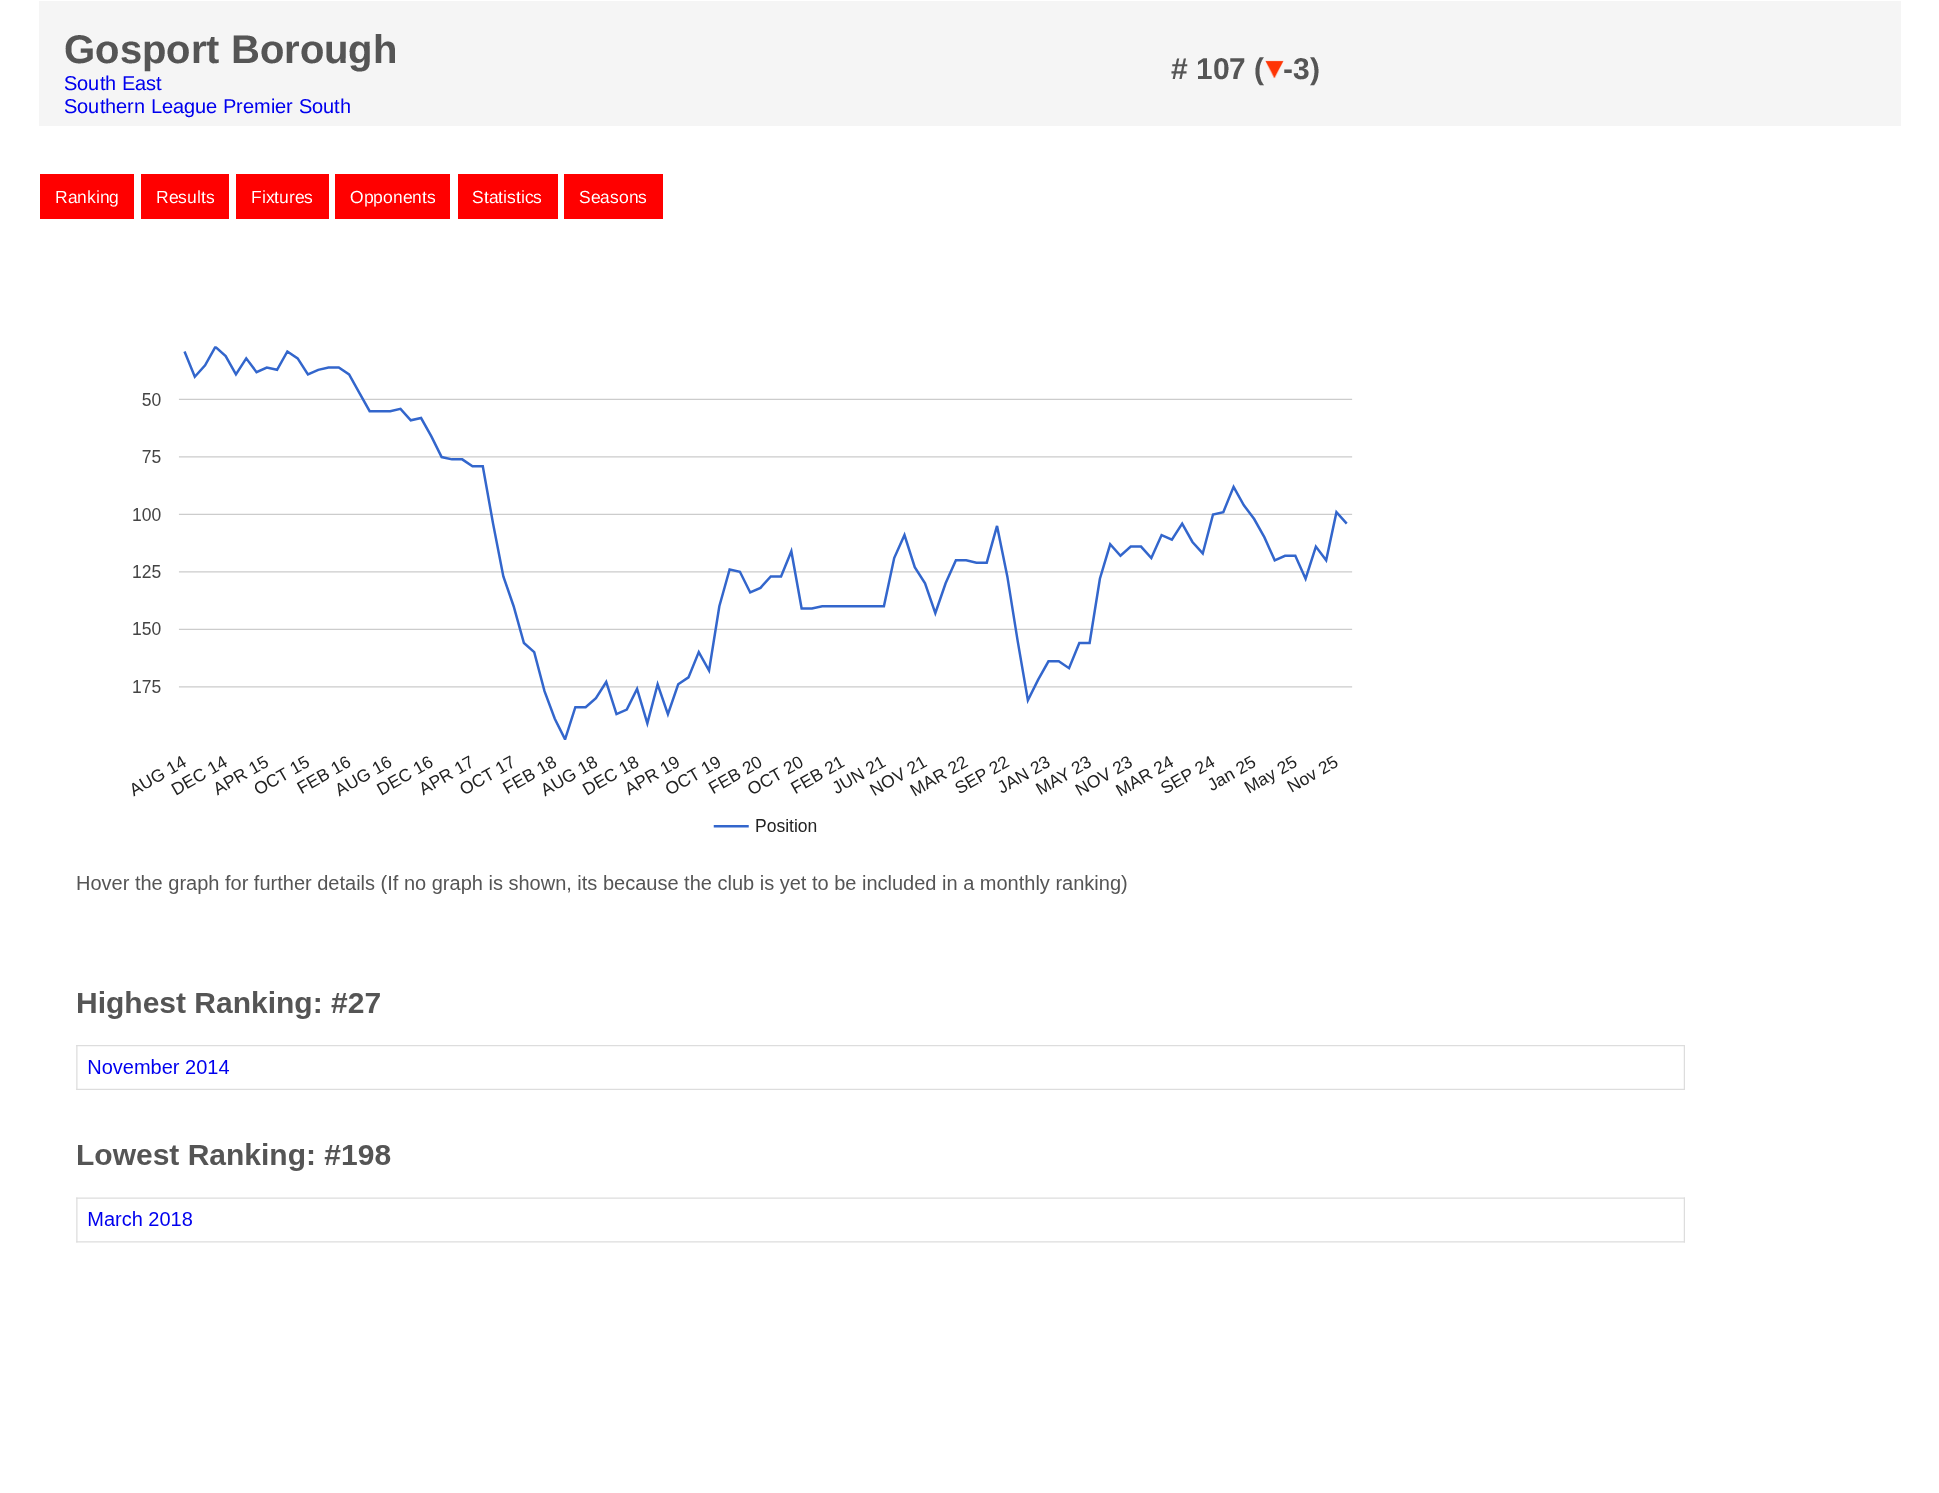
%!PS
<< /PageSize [1939 1493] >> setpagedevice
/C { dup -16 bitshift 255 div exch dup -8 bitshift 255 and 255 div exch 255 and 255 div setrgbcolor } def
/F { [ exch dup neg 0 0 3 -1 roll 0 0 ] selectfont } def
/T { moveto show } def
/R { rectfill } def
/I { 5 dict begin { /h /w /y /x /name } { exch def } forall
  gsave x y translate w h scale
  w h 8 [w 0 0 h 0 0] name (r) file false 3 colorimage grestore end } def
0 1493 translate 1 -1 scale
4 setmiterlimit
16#FFFFFF C
0 0 1939 1493 R
16#F5F5F5 C
39 1 1862 125 R
/LiberationSans-Bold 40 F
16#555555 C
(Gosport Borough) 64 63 T
/LiberationSans-Regular 20 F
16#0000EE C
(South East) 64 90 T
(Southern League Premier South) 64 113 T
/LiberationSans-Bold 30 F
16#555555 C
(# 107 \() 1171 79 T
(1.rgb) 1265 60 19 19 I
(-3\)) 1283 79 T
16#FF0000 C
40 174 94 45 R
/LiberationSans-Regular 17.5 F
16#FFFFFF C
(Ranking) 55 203 T
16#FF0000 C
141 174 88 45 R
16#FFFFFF C
(Results) 156 203 T
16#FF0000 C
236 174 93 45 R
16#FFFFFF C
(Fixtures) 251 203 T
16#FF0000 C
335 174 115 45 R
16#FFFFFF C
(Opponents) 350 203 T
16#FF0000 C
458 174 100 45 R
16#FFFFFF C
(Statistics) 472 203 T
16#FF0000 C
564 174 99 45 R
16#FFFFFF C
(Seasons) 579 203 T
(2.rgb) 76 346 1609 897 I
showpage
